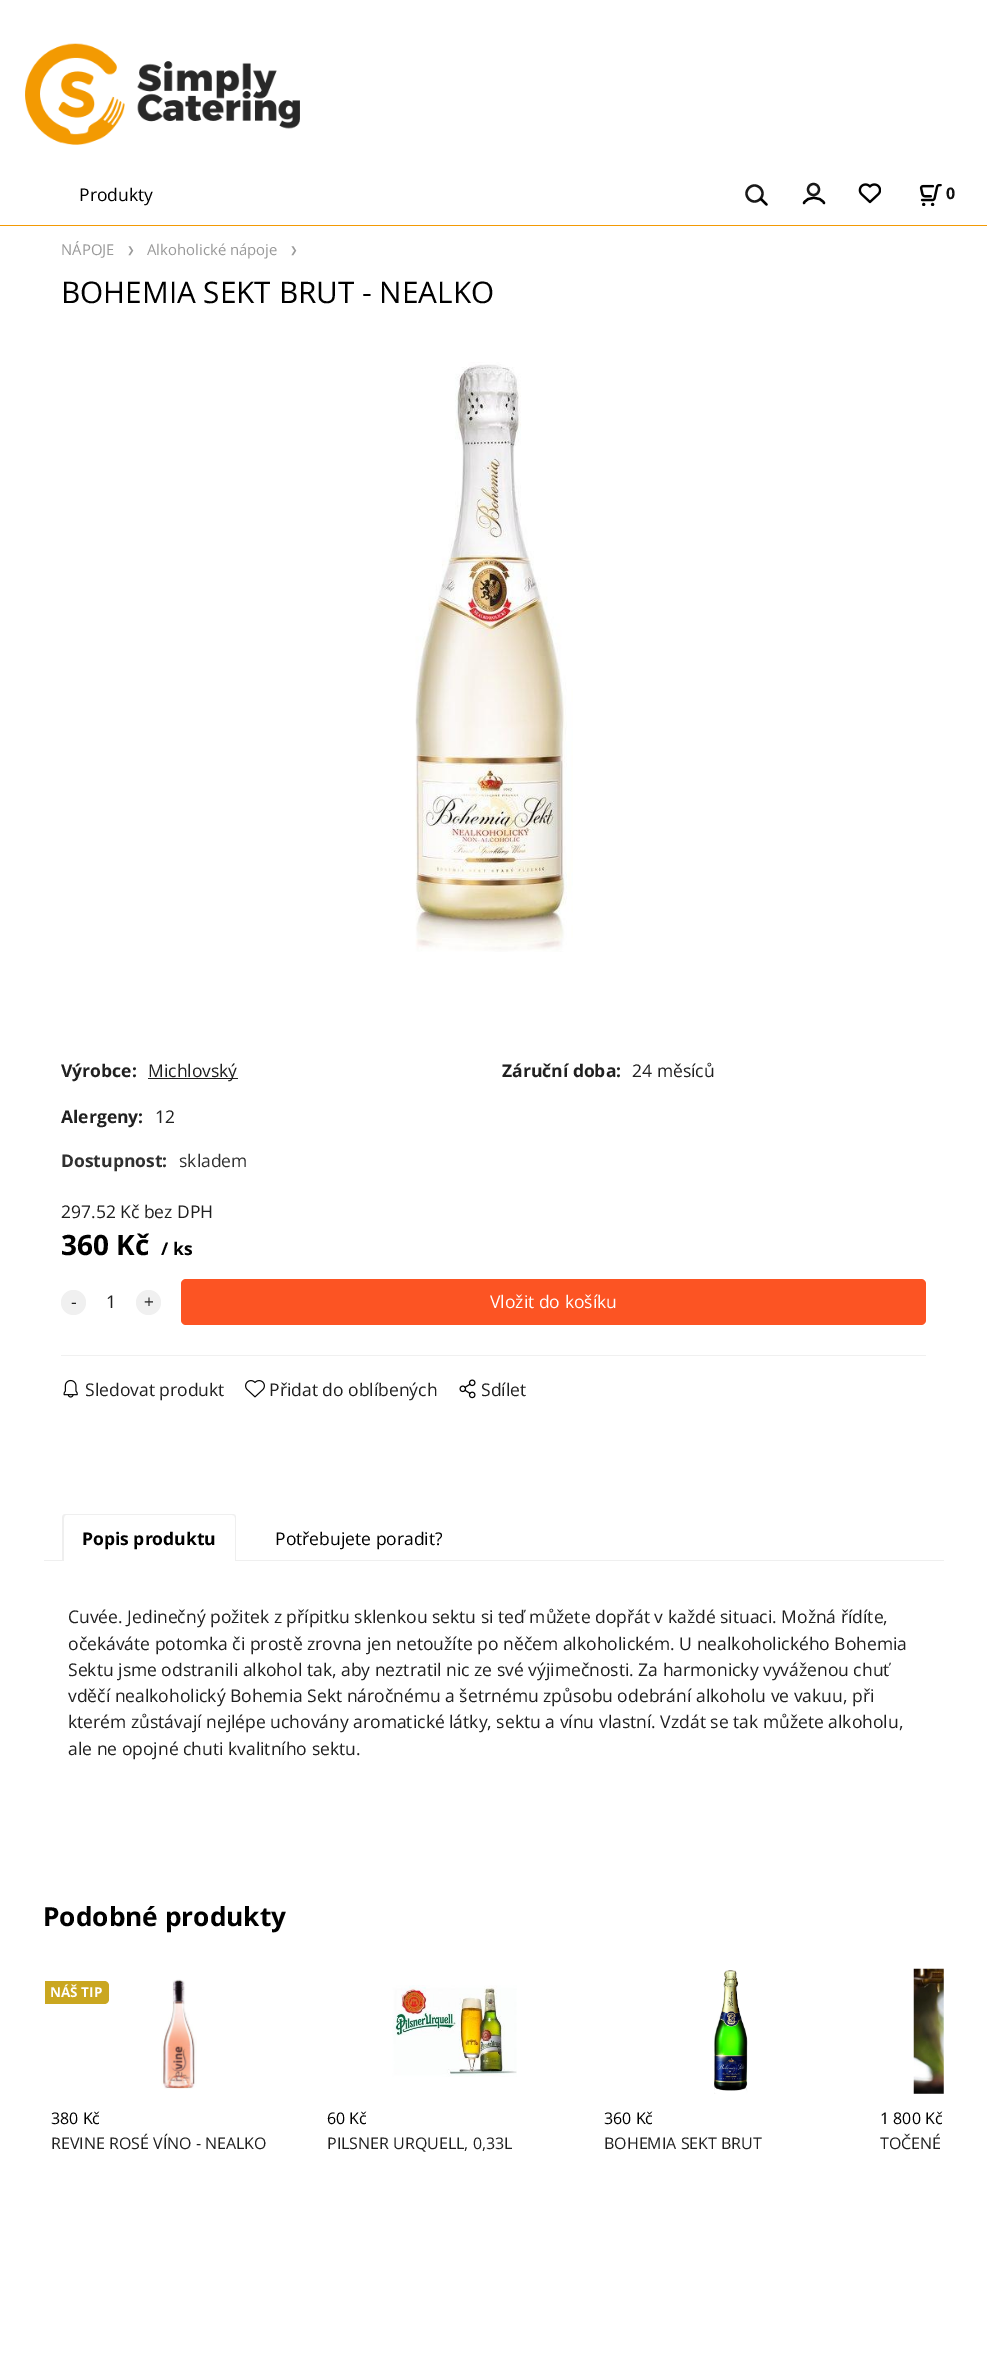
%!PS
<< /PageSize [987 2379] >> setpagedevice
/m/moveto load def
/l/rlineto load def
/c/rcurveto load def
/z/closepath load def
/f/fill load def
/s/stroke load def
/w/setlinewidth load def
/C { dup -16 bitshift 255 div exch dup -8 bitshift 255 and 255 div exch 255 and 255 div setrgbcolor } def
/F { [ exch dup neg 0 0 3 -1 roll 0 0 ] selectfont } def
/T { moveto show } def
/R { rectfill } def
/O { newpath 0 360 arc closepath } def
/Q { 5 dict begin { /r /h /w /y /x } { exch def } forall
  x r add y moveto x w add y 2 copy h add r arct x w add y h add x 1 index r arct
  x y h add x y r arct x y 2 copy exch w add exch r arct closepath end } def
/I { 5 dict begin { /h /w /y /x /name } { exch def } forall
  gsave x y translate w h scale
  w h 8 [w 0 0 h 0 0] name (r) file false 3 colorimage grestore end } def
0 2379 translate 1 -1 scale
4 setmiterlimit
16#FFFFFF C
0 0 987 2379 R
(1.rgb) 25 43 275 102 I
16#F39A04 C
0 225 987 1 R
/OpenSans-Regular 17.5 F
16#000000 C
(Produkty) 79 201 T
16#191919 C
2.3 w
754.5 193.5 8 O s
16#000000 C
1 setlinecap
761 199 m 5.5 5.5 l s
16#191919 C
0 setlinecap
813.5 189.5 5.5 O s
16#000000 C
1 setlinecap
804 203 m 3.5 -7 16 -7 20 0 c s
(2.rgb) 858 183 23 21 I
(3.rgb) 919 184 23 22 I
/OpenSans-Bold 16 F
16#101010 C
(0) 946 199 T
/OpenSans-Regular 14.9 F
16#999999 C
(NÁPOJE) 61 255 T
/DejaVuSans-Regular 9 F
(❯) 127 253 T
/OpenSans-Regular 14.9 F
(Alkoholické nápoje) 147 255 T
/DejaVuSans-Regular 9 F
(❯) 290 253 T
/OpenSans-Regular 29.75 F
16#000000 C
(BOHEMIA SEKT BRUT - NEALKO) 61 303 T
(4.rgb) 415 362 158 590 I
/OpenSans-Bold 17.5 F
16#202020 C
(Výrobce:) 61 1077 T
148 1078 90 1 R
/OpenSans-Regular 17.5 F
(Michlovský) 148 1077 T
/OpenSans-Bold 17.5 F
(Záruční doba:) 502 1077 T
/OpenSans-Regular 17.5 F
(24 měsíců) 632 1077 T
/OpenSans-Bold 17.5 F
(Alergeny:) 61 1123 T
/OpenSans-Regular 17.5 F
(12) 155 1123 T
/OpenSans-Bold 17.5 F
16#303030 C
(Dostupnost:) 61 1167 T
/OpenSans-Regular 17.5 F
(skladem) 179 1167 T
16#202020 C
(297.52 Kč bez DPH) 61 1218 T
/OpenSans-Bold 28 F
16#000000 C
(360 Kč) 61 1255 T
/OpenSans-Bold 17.5 F
(/ ks) 161 1255 T
16#F0F0F0 C
73.5 1302.5 12.5 O f
/OpenSans-Regular 17.5 F
16#202020 C
(-) 71 1308 T
(1) 106 1308 T
16#F0F0F0 C
148.5 1302.5 12.5 O f
16#202020 C
(+) 144 1308 T
16#FC5423 C
181 1279 745 46 5 Q f
16#FFFFFF C
(Vložit do košíku) 490 1308 T
16#F0F0F0 C
61 1355 865 1 R
(5.rgb) 63 1379 15 19 I
16#202020 C
(Sledovat produkt) 85 1396 T
(6.rgb) 245 1380 20 18 I
(Přidat do oblíbených) 269 1396 T
(7.rgb) 459 1379 17 20 I
(Sdílet) 481 1396 T
16#EFEFEF C
44 1560 900 1 R
16#FFFFFF C
67 1514 m 165 0 l 2 0 4 2 4 4 c 0 43 l -173 0 l 0 -43 l 0 -2 2 -4 4 -4 c z f
16#EFEFEF C
66 1514 m 166 0 l 3 0 4 1 4 4 c 0 43 l -174 0 l 0 -43 l 0 -3 2 -4 4 -4 c z 66 1515 m 166 0 l 2 0 3 1 3 3 c 0 43 l -171 0 l 0 -43 l 0 -2 1 -3 2 -3 c z eofill
/OpenSans-Bold 17.5 F
16#000000 C
(Popis produktu) 82 1545 T
/OpenSans-Regular 17.5 F
(Potřebujete poradit?) 275 1545 T
16#202020 C
(Cuvée. Jedinečný požitek z přípitku sklenkou sektu si teď můžete dopřát v každé situaci. Možná řídíte,) 68 1623 T
(očekáváte potomka či prostě zrovna jen netoužíte po něčem alkoholickém. U nealkoholického Bohemia) 68 1650 T
(Sektu jsme odstranili alkohol tak, aby neztratil nic ze své výjimečnosti. Za harmonicky vyváženou chuť) 68 1676 T
(vděčí nealkoholický Bohemia Sekt náročnému a šetrnému způsobu odebrání alkoholu ve vakuu, při) 68 1702 T
(kterém zůstávají nejlépe uchovány aromatické látky, sektu a vínu vlastní. Vzdát se tak můžete alkoholu,) 68 1728 T
(ale ne opojné chuti kvalitního sektu.) 68 1755 T
/OpenSans-Bold 26.25 F
16#000000 C
(Podobné produkty) 43 1926 T
16#CAA720 C
45 1981 m 59 0 l 3 0 5 2 5 5 c 0 13 l 0 3 -2 5 -5 5 c -59 0 l z f
/OpenSans-Bold 13.5 F
16#FFFFFF C
(NÁŠ TIP) 50 1997 T
(8.rgb) 161 1979 36 110 I
/OpenSans-Regular 16 F
16#000000 C
(380 Kč) 51 2124 T
16#202020 C
(REVINE ROSÉ VÍNO - NEALKO) 51 2149 T
(9.rgb) 392 1985 125 92 I
16#000000 C
(60 Kč) 327 2124 T
16#202020 C
(PILSNER URQUELL, 0,33L) 327 2149 T
(10.rgb) 713 1970 35 124 I
16#000000 C
(360 Kč) 604 2124 T
16#202020 C
(BOHEMIA SEKT BRUT) 604 2149 T
(11.rgb) 913 1968 31 126 I
16#000000 C
(1 800 Kč) 880 2124 T
16#202020 C
(TOČENÉ) 880 2149 T
showpage
